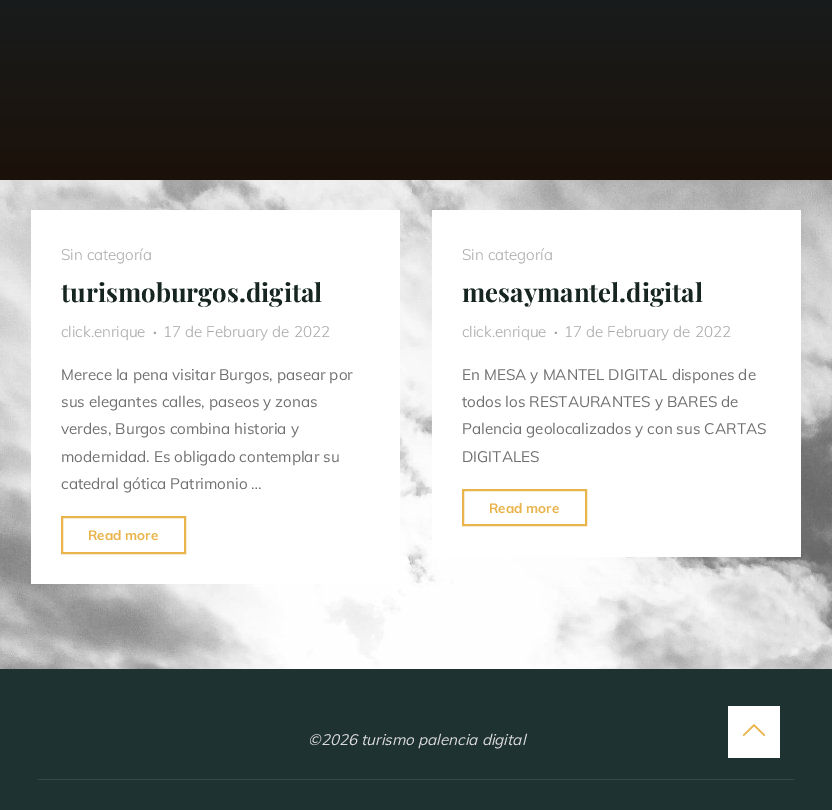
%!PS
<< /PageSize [832 810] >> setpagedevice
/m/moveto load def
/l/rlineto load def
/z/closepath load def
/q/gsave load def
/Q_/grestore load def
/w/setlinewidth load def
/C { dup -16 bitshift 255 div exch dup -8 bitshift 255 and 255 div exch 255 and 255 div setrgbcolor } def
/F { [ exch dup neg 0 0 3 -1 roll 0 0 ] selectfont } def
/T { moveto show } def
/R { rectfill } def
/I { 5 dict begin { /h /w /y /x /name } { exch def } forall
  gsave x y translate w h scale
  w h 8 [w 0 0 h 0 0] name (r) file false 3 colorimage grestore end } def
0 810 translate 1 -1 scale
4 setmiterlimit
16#FFFFFF C
0 0 832 810 R
(1.rgb) 0 180 832 489 I
q 0 0 m 832 0 l 0 180 l -832 0 l z clip newpath
<< /ShadingType 2 /ColorSpace /DeviceRGB /Coords [416 -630 416 180] /Extend [true true] /Function << /FunctionType 2 /Domain [0 1] /C0 [.031 .255 .361] /C1 [.11 .067 .039] /N 1 >> >> shfill Q_
31 210 369 374 R
/Muli-Light 15.25 F
16#A7A7A7 C
(Sin categoría) 61 260 T
/PlayfairDisplay-Bold 25.75 F
16#162521 C
(turismoburgos.digital) 61 302 T
/Muli-Light 15.25 F
16#A7A7A7 C
(click.enrique) 61 337 T
/Muli-Bold 15.25 F
(·) 153 337 T
/Muli-Light 15.25 F
(17 de February de 2022) 163 337 T
/Muli-Regular 15.25 F
16#707070 C
(Merece la pena visitar Burgos, pasear por) 61 380 T
(sus elegantes calles, paseos y zonas) 61 407 T
(verdes, Burgos combina historia y) 61 434 T
(modernidad. Es obligado contemplar su) 61 462 T
(catedral gótica Patrimonio …) 61 489 T
16#E9B44C C
2 w
62 517 123 36 rectstroke
/Muli-Bold 13.5 F
(Read more) 88 540 T
16#FFFFFF C
432 210 369 347 R
/Muli-Light 15.25 F
16#A7A7A7 C
(Sin categoría) 462 260 T
/PlayfairDisplay-Bold 25.75 F
16#162521 C
(mesaymantel.digital) 462 302 T
/Muli-Light 15.25 F
16#A7A7A7 C
(click.enrique) 462 337 T
/Muli-Bold 15.25 F
(·) 554 337 T
/Muli-Light 15.25 F
(17 de February de 2022) 564 337 T
/Muli-Regular 15.25 F
16#707070 C
(En MESA y MANTEL DIGITAL dispones de) 462 380 T
(todos los RESTAURANTES y BARES de) 462 407 T
(Palencia geolocalizados y con sus CARTAS) 462 434 T
(DIGITALES) 462 462 T
16#E9B44C C
463 490 123 35 rectstroke
/Muli-Bold 13.5 F
(Read more) 489 513 T
16#1E3231 C
0 669 832 141 R
/Muli-Italic 15.25 F
16#DBDBDB C
(©2026 turismo palencia digital) 308 745 T
16#354746 C
38 779 756 1 R
16#FFFFFF C
728 706 52 52 R
(2.rgb) 742 724 24 12 I
showpage
